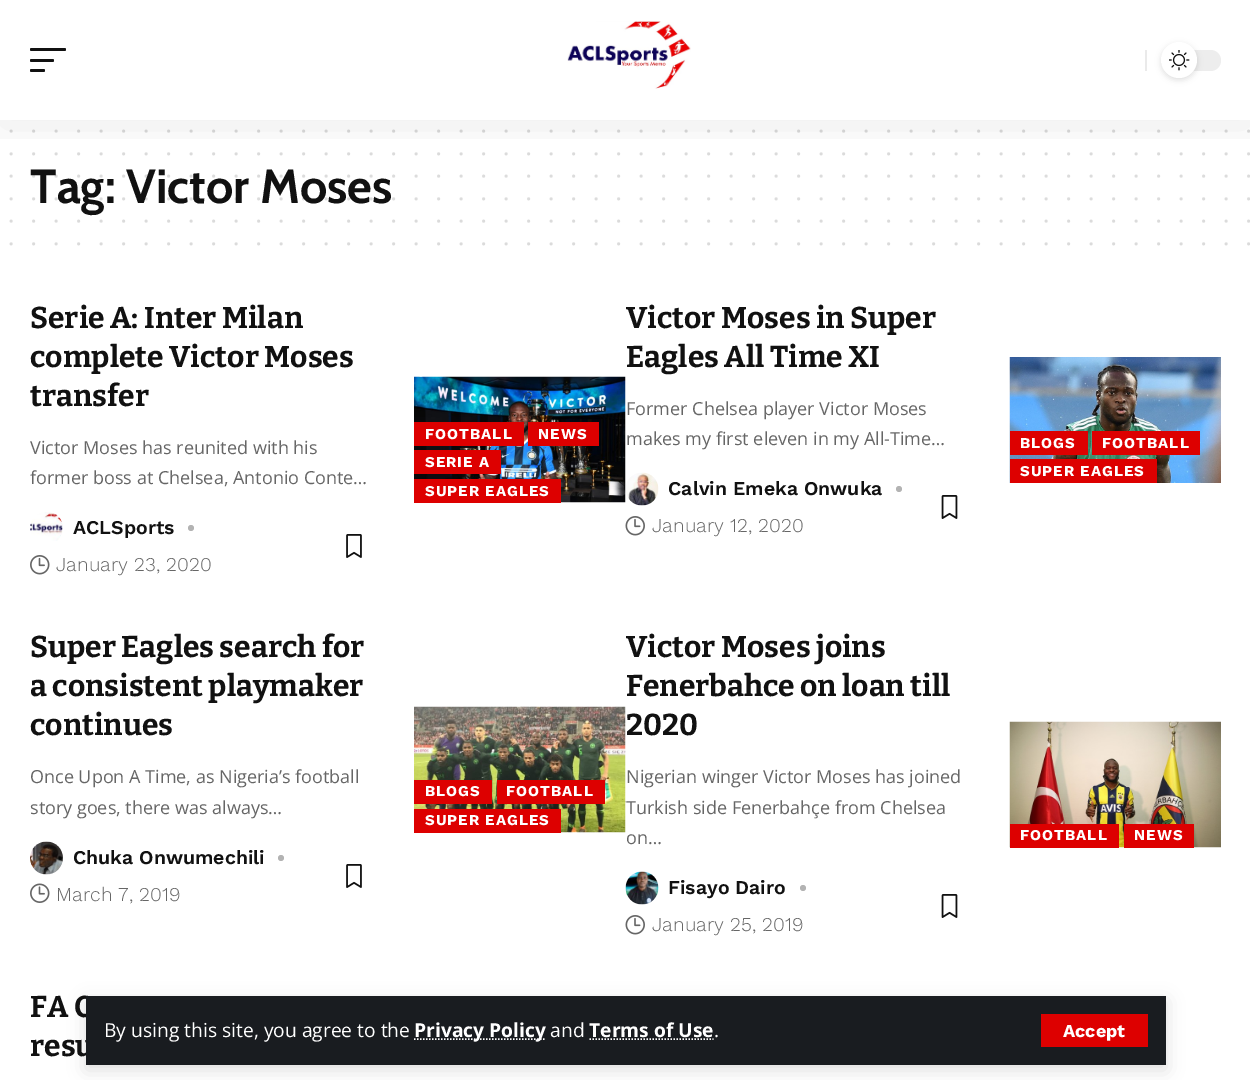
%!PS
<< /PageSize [1250 1080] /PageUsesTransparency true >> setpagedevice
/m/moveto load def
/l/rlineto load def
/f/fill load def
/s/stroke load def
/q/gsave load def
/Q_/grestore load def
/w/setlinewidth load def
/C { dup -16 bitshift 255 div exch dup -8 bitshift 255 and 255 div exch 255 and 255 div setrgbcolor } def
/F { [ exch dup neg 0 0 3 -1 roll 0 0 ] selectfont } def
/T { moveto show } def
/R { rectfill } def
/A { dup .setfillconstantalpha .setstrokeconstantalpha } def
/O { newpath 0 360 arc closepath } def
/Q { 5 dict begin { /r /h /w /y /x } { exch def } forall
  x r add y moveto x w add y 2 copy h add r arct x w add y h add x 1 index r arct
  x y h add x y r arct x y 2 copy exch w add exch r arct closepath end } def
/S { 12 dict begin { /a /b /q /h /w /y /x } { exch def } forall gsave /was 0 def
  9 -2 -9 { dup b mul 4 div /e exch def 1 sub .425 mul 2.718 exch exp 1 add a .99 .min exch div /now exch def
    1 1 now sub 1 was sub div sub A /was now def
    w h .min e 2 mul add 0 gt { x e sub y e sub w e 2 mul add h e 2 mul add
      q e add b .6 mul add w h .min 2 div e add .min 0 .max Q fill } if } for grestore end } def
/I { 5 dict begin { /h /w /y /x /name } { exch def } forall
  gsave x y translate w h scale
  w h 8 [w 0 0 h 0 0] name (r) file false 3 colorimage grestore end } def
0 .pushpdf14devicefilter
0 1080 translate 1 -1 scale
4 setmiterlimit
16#FFFFFF C
0 0 1250 1080 R
16#DBDBDB C
3 w
1 setlinecap
[0 22.5] 0 setdash
11.2 131.2 m 1237.9 0 l s
11.2 153.8 m 1237.9 0 l s
/Cabin-Bold 48 F
16#111111 C
(Tag: Victor Moses) 30 203 T
0.15 A
11.2 176.2 m 1237.9 0 l s
11.2 198.8 m 1237.9 0 l s
1 A
16#DBDBDB C
11.2 221.2 m 1237.9 0 l s
11.2 243.8 m 1237.9 0 l s
/Bitter-Bold 30 F
16#111111 C
(Serie A: Inter Milan) 30 328 T
(complete Victor Moses) 30 367 T
(transfer) 30 406 T
/OpenSans-Regular 18 F
16#666666 C
(Victor Moses has reunited with his) 30 454 T
(former boss at Chelsea, Antonio Conte…) 30 484 T
(1.rgb) 30 512 33 29 I
/WorkSans-SemiBold 19.5 F
16#111111 C
(ACLSports) 73 534 T
16#B3B3B3 C
191 528 3 O f
(2.rgb) 30 555 20 20 I
/WorkSans-Light 19.5 F
16#666666 C
(January 23, 2020) 56 571 T
(3.rgb) 346 534 16 24 I
(4.rgb) 414 376 212 127 I
16#DD0000 C
414 422 110 24 R
/WorkSans-Bold 15 F
16#FFFFFF C
425 439 m 1 0 (FOOTBALL) ashow
16#DD0000 C
528 422 71 24 R
16#FFFFFF C
538 439 m 1 0 (NEWS) ashow
16#DD0000 C
414 450 87 24 R
16#FFFFFF C
425 467 m 1 0 (SERIE A) ashow
16#DD0000 C
414 479 147 24 R
16#FFFFFF C
425 496 m 1 0 (SUPER EAGLES) ashow
/Bitter-Bold 30 F
16#111111 C
(Victor Moses in Super) 626 328 T
(Eagles All Time XI) 626 367 T
/OpenSans-Regular 18 F
16#666666 C
(Former Chelsea player Victor Moses) 626 415 T
(makes my first eleven in my All-Time…) 626 445 T
(5.rgb) 626 472 33 34 I
/WorkSans-SemiBold 19.5 F
16#111111 C
(Calvin Emeka Onwuka) 668 495 T
16#B3B3B3 C
899 489 3 O f
(6.rgb) 625 516 20 20 I
/WorkSans-Light 19.5 F
16#666666 C
(January 12, 2020) 652 532 T
(7.rgb) 941 495 17 24 I
(8.rgb) 1009 357 212 126 I
16#DD0000 C
1010 431 78 24 R
/WorkSans-Bold 15 F
16#FFFFFF C
1020 448 m 1 0 (BLOGS) ashow
16#DD0000 C
1092 431 108 24 R
16#FFFFFF C
1102 448 m 1 0 (FOOTBALL) ashow
16#DD0000 C
1010 459 147 24 R
16#FFFFFF C
1020 476 m 1 0 (SUPER EAGLES) ashow
/Bitter-Bold 30 F
16#111111 C
(Super Eagles search for) 30 657 T
(a consistent playmaker) 30 696 T
(continues) 30 735 T
/OpenSans-Regular 18 F
16#666666 C
(Once Upon A Time, as Nigeria’s football) 30 783 T
(story goes, there was always…) 30 814 T
(9.rgb) 30 841 33 34 I
/WorkSans-SemiBold 19.5 F
16#111111 C
(Chuka Onwumechili) 73 864 T
16#B3B3B3 C
281 858 3 O f
(10.rgb) 30 883 20 20 I
/WorkSans-Light 19.5 F
16#666666 C
(March 7, 2019) 56 901 T
(3.rgb) 346 864 16 24 I
/OpenSans-Regular 18 F
(Turkish side Fenerbahçe from Chelsea) 626 814 T
(11.rgb) 414 706 212 127 I
16#DD0000 C
414 780 78 24 R
/WorkSans-Bold 15 F
16#FFFFFF C
425 796 m 1 0 (BLOGS) ashow
16#DD0000 C
497 780 108 24 R
16#FFFFFF C
506 796 m 1 0 (FOOTBALL) ashow
16#DD0000 C
414 809 147 24 R
16#FFFFFF C
425 825 m 1 0 (SUPER EAGLES) ashow
/Bitter-Bold 30 F
16#111111 C
(Victor Moses joins) 626 657 T
(Fenerbahce on loan till) 626 696 T
(2020) 626 735 T
/OpenSans-Regular 18 F
16#666666 C
(Nigerian winger Victor Moses has joined) 626 783 T
(on…) 626 844 T
(12.rgb) 625 871 34 34 I
/WorkSans-SemiBold 19.5 F
16#111111 C
(Fisayo Dairo) 668 894 T
16#B3B3B3 C
803 888 3 O f
(6.rgb) 625 915 20 20 I
/WorkSans-Light 19.5 F
16#666666 C
(January 25, 2019) 652 931 T
(7.rgb) 941 894 17 24 I
(13.rgb) 1009 721 212 127 I
16#DD0000 C
1010 824 109 24 R
/WorkSans-Bold 15 F
16#FFFFFF C
1020 840 m 1 0 (FOOTBALL) ashow
16#DD0000 C
1124 824 70 24 R
16#FFFFFF C
1134 840 m 1 0 (NEWS) ashow
/Bitter-Bold 30 F
16#111111 C
(FA C) 30 1017 T
(resu) 30 1056 T
q
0 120 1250 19 rectclip
16#000000 C
0 6 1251 120 0 22.5 .07 S
Q_
30 48 36 3 1.5 Q f
30 59 24 3 1.5 Q f
30 69 15 3 1.5 Q f
(14.rgb) 567 21 124 68 I
16#EAEAEA C
1145 50 2 21 R
16#EDEDED C
1161 50 60 21 10.5 Q f
16#000000 C
1161 44 36 36 18 3 .12 S
16#FFFFFF C
1179 60 18 O f
(15.rgb) 1169 50 21 21 I
16#000000 C
86 1001 1080 69 0 9 .12 S
16#191C20 C
86 996 1080 69 R
/OpenSans-Regular 19.25 F
16#FFFFFF C
(By using this site, you agree to the) 104 1037 T
1.5 w
0 setlinecap
[1.5 1.5] 0 setdash
414 1039 m 131 0 l s
/OpenSans-Bold 19.25 F
(Privacy Policy) 414 1037 T
/OpenSans-Regular 19.25 F
(and) 550 1037 T
/OpenSans-Bold 19.25 F
(Terms of Use) 589 1037 T
589.5 1039 m 124 0 l s
/OpenSans-Regular 19.25 F
(.) 714 1037 T
16#DD0000 C
1041 1014 107 33 R
/WorkSans-Bold 18 F
16#FFFFFF C
(Accept) 1063 1037 T
.poppdf14devicefilter showpage
